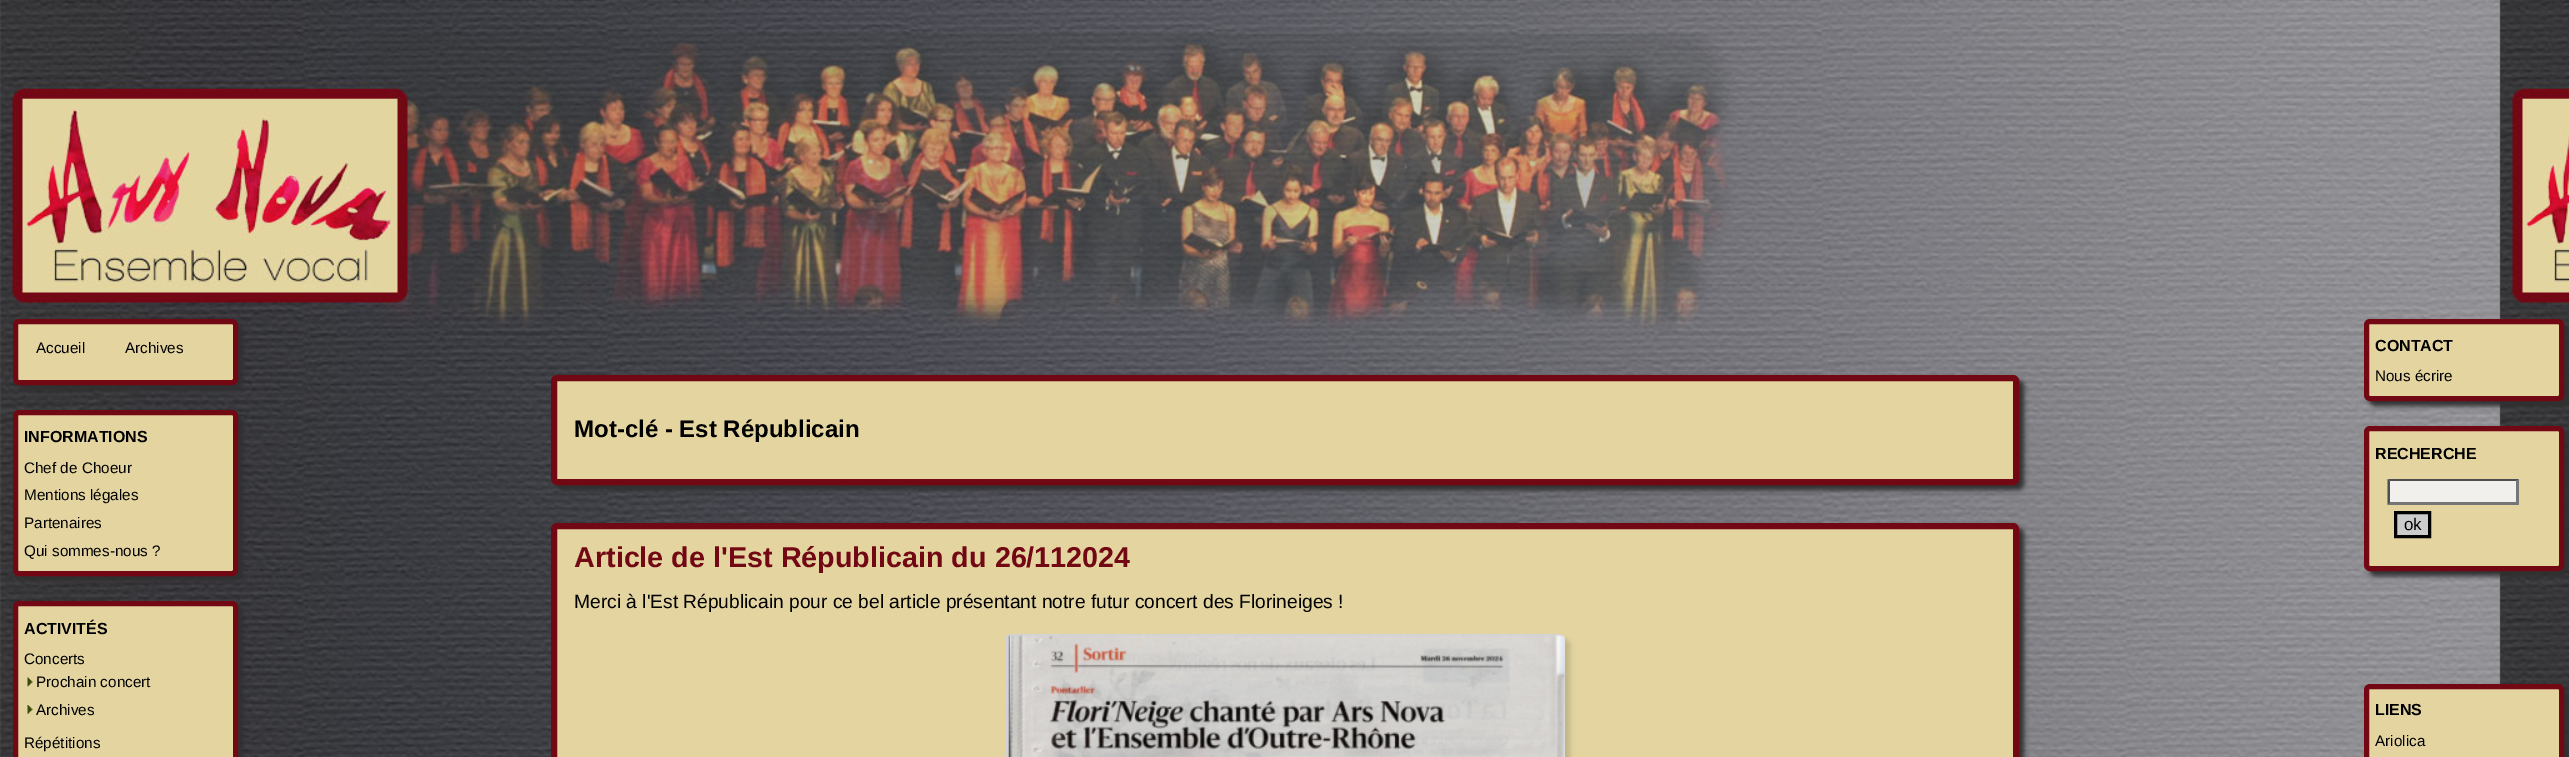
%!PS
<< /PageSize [2569 757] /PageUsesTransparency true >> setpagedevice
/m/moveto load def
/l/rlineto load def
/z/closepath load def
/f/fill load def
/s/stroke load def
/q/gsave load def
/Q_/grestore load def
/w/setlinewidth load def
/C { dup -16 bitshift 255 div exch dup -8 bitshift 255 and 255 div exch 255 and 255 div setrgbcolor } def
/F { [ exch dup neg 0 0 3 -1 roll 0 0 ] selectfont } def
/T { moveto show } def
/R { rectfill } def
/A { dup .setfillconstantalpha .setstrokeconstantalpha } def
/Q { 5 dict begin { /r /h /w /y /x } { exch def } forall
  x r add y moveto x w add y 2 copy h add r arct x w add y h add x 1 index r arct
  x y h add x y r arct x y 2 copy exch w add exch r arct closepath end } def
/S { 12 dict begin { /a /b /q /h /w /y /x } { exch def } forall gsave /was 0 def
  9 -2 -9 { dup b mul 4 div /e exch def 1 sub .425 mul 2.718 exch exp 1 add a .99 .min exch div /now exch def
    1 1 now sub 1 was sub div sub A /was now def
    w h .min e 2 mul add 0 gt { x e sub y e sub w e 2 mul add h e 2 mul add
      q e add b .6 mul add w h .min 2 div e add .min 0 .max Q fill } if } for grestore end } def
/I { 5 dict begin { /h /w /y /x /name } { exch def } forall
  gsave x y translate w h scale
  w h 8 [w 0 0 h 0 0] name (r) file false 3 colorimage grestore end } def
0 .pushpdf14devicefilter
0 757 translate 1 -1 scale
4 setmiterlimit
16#FFFFFF C
0 0 2569 757 R
(1.rgb) 0 0 2569 757 I
16#2F2F30 C
18 324 225 66 6 2.5 1 S
16#E4D5A0 C
15.5 321.5 220 61 3.5 Q q f Q_
16#720814 C
5 w
s
/LiberationSans-Regular 15.25 F
16#000000 C
(Accueil) 36 353 T
(Archives) 125 353 T
16#2F2F30 C
18 415 225 166 6 2.5 1 S
16#E4D5A0 C
15.5 412.5 220 161 3.5 Q q f Q_
16#720814 C
s
/LiberationSans-Bold 16 F
16#000000 C
(INFORMATIONS) 24 442 T
/LiberationSans-Regular 15.25 F
(Chef de Choeur) 24 473 T
(Mentions légales) 24 500 T
(Partenaires) 24 528 T
(Qui sommes-nous ?) 24 556 T
16#2F2F30 C
18 606 225 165 6 2.5 1 S
16#E4D5A0 C
15.5 603.5 220 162 3.5 Q q f Q_
16#720814 C
s
/LiberationSans-Bold 16 F
16#000000 C
(ACTIVITÉS) 24 634 T
/LiberationSans-Regular 15.25 F
(Concerts) 24 664 T
(2.rgb) 27 677 6 10 I
(Prochain concert) 36 687 T
(3.rgb) 27 705 6 9 I
(Archives) 36 715 T
(Répétitions) 24 748 T
16#2F2F30 C
2369 324 200 82 6 2.5 1 S
16#E4D5A0 C
2366.5 321.5 195 77 3.5 Q q f Q_
16#720814 C
s
/LiberationSans-Bold 16 F
16#000000 C
(CONTACT) 2375 351 T
/LiberationSans-Regular 15.25 F
(Nous écrire) 2375 381 T
16#2F2F30 C
2369 431 200 145 6 2.5 1 S
16#E4D5A0 C
2366.5 428.5 195 140 3.5 Q q f Q_
16#720814 C
s
/LiberationSans-Bold 16 F
16#000000 C
(RECHERCHE) 2375 459 T
16#F1F0ED C
2388 479 131 26 R
16#4F4F4F C
2388 479 m 131 0 l -3 2 l -126 0 l z f
16#767676 C
2519 479 m 0 26 l -3 -2.5 l 0 -21.5 l z f
2519 505 m -131 0 l 2 -3 l 126 0 l z f
16#4F4F4F C
2387.5 505 m 0 -26 l 2.5 2 l 0 21.5 l z f
16#CCCCCC C
2395.5 512.5 m 34 0 l 0 24 l -34 0 l z q f Q_
16#000000 C
3 w
s
/LiberationSans-Regular 17 F
(ok) 2404 530 T
16#2F2F30 C
2369 689 200 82 6 2.5 1 S
16#E4D5A0 C
2366.5 686.5 195 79 3.5 Q q f Q_
16#720814 C
5 w
s
/LiberationSans-Bold 16 F
16#000000 C
(LIENS) 2375 715 T
/LiberationSans-Regular 15.25 F
(Ariolica) 2375 746 T
16#2F2F30 C
556 380 1468 110 6 2.5 1 S
16#E4D5A0 C
554 378 1462 104 3 Q q f Q_
16#720814 C
6 w
s
/LiberationSans-Bold 24 F
16#000000 C
(Mot-clé - Est Républicain) 574 437 T
16#2F2F30 C
556 528 1468 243 6 2.5 1 S
16#E4D5A0 C
554 526 1462 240 3 Q q f Q_
16#720814 C
s
/LiberationSans-Bold 28.75 F
(Article de l'Est Républicain du 26/112024) 574 567 T
/LiberationSans-Regular 19.2 F
16#000000 C
(Merci à l'Est Républicain pour ce bel article présentant notre futur concert des Florineiges !) 574 608 T
1010 639 560 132 6 2.5 .15 S
(4.rgb) 1005 634 560 123 I
.poppdf14devicefilter showpage
